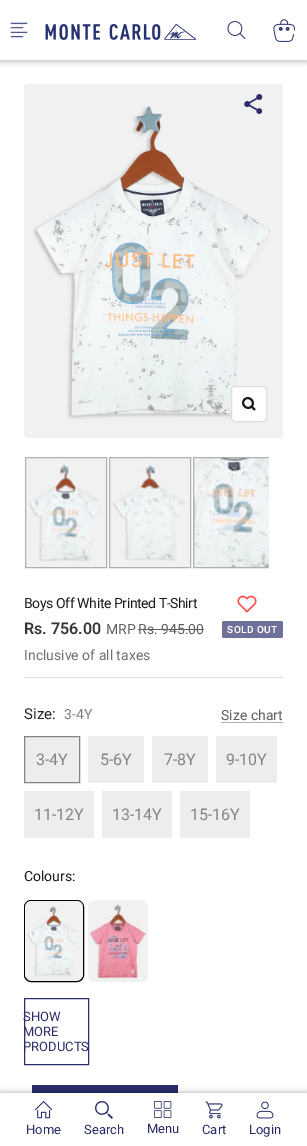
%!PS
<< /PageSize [307 1146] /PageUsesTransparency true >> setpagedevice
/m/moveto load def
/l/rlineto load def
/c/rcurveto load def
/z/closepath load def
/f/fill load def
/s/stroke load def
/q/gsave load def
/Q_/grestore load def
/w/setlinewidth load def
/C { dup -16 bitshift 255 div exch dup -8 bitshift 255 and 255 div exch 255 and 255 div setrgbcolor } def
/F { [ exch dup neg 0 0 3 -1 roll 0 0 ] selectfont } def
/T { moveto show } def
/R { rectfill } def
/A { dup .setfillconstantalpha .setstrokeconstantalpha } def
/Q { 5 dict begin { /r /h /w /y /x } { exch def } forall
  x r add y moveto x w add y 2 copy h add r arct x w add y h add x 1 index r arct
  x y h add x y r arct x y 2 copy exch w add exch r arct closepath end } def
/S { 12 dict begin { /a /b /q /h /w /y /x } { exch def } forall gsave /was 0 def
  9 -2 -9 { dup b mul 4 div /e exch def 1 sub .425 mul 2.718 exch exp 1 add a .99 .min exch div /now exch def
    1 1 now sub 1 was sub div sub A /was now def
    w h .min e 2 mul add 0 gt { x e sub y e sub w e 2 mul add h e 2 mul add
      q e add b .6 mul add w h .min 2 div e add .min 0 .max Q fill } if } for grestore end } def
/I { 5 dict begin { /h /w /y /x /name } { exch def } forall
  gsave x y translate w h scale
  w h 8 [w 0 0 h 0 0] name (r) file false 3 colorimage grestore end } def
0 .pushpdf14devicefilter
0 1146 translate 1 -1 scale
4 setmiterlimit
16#FFFFFF C
0 0 307 1146 R
16#000000 C
0 2 307 60 0 2 .25 S
16#DEDEDE C
0 0 307 60 0 5 1 S
16#FFFFFF C
0 0 307 60 R
(1.rgb) 10 22 18 16 I
(2.rgb) 45 24 152 16 I
(3.rgb) 227 21 19 18 I
(4.rgb) 273 19 22 23 I
(5.rgb) 24 84 259 354 I
(6.rgb) 244 94 19 20 I
231.5 386.5 35 35 3.5 Q q f Q_
16#DDDDDD C
s
16#1A1A1A C
2 w
251.5 406.5 m 4.5 -4.5 -2.5 -11.5 -7 -7 c -4.5 4.5 2.5 11.5 7 7 c z 251.5 406.5 m 3.5 3.5 l s
(7.rgb) 26 458 80 109 I
16#B1B0B0 C
1 w
25.5 457.5 81 110 rectstroke
(8.rgb) 110 458 80 109 I
109.5 457.5 81 110 rectstroke
(9.rgb) 194 458 75 109 I
q
0 456 269 113 rectclip
193.5 457.5 81 110 rectstroke
Q_
(10.rgb) 237 595 20 18 I
16#DDDDDD C
24 677 259 1 R
/Roboto-Regular 14 F
16#1A1A1A C
24 608 m -.4 0 (Boys Off White Printed T-Shirt) ashow
/Roboto-SemiBold 16 F
16#353535 C
(Rs. 756.00) 24 634 T
/Roboto-Regular 14 F
16#5F5F5F C
(MRP) 106 634 T
(Rs. 945.00) 138 634 T
138 629 66 1 R
16#6F719B C
222 621 61 17 2 Q f
/Roboto-SemiBold 10 F
16#FFFFFF C
227 633 m .5 0 (SOLD OUT) ashow
/Roboto-Regular 14 F
16#726F6F C
(Inclusive of all taxes) 24 660 T
/Roboto-Regular 15 F
16#252525 C
(Size:) 24 719 T
/Roboto-Regular 14 F
16#7E7E7E C
(3-4Y) 64 719 T
16#5F5F5F C
(Size chart) 221 720 T
16#AFAFAF C
221 722 62 1 R
16#EDEDED C
25 737 54 45 R
16#848484 C
24.5 736.5 55 46 rectstroke
/Roboto-Regular 16 F
(3-4Y) 36 765 T
16#EDEDED C
88 736 56 47 R
16#848484 C
(5-6Y) 100 765 T
16#EDEDED C
152 736 56 47 R
16#848484 C
(7-8Y) 164 765 T
16#EDEDED C
216 736 61 47 R
16#848484 C
(9-10Y) 226 765 T
16#EDEDED C
24 791 70 47 R
16#848484 C
(11-12Y) 34 820 T
16#EDEDED C
102 791 70 47 R
16#848484 C
(13-14Y) 112 820 T
16#EDEDED C
180 791 70 47 R
16#848484 C
(15-16Y) 190 820 T
/Roboto-Regular 14 F
16#1A1A1A C
(Colours:) 24 881 T
16#F0F0F0 C
24.5 900.5 59 81 6.5 Q q f Q_
16#000000 C
s
(11.rgb) 25 901 58 76 I
16#F0F0F0 C
88 900 60 82 7 Q f
(12.rgb) 88 900 58 82 I
16#292D69 C
24.5 998.5 64 66 rectstroke
/Roboto-Regular 13 F
(SHOW) 23 1021 T
(MORE) 23 1036 T
(PRODUCTS) 23 1051 T
32 1085 146 8 R
16#000000 C
0 1093 307 53 0 3 .36 S
16#FFFFFF C
0 1093 307 53 R
(13.rgb) 35 1101 18 18 I
16#292D69 C
(Home) 26 1134 T
(14.rgb) 95 1101 18 18 I
(Search) 84 1134 T
(15.rgb) 154 1101 18 17 I
(Menu) 147 1133 T
(16.rgb) 205 1101 18 18 I
(Cart) 202 1134 T
(17.rgb) 256 1101 18 18 I
(Login) 249 1134 T
.poppdf14devicefilter showpage
